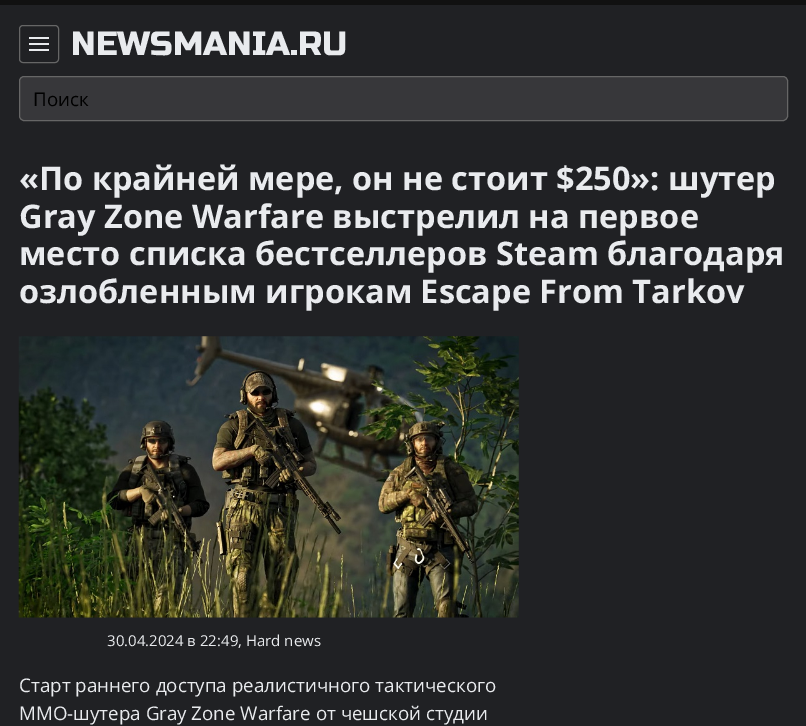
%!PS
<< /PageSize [806 726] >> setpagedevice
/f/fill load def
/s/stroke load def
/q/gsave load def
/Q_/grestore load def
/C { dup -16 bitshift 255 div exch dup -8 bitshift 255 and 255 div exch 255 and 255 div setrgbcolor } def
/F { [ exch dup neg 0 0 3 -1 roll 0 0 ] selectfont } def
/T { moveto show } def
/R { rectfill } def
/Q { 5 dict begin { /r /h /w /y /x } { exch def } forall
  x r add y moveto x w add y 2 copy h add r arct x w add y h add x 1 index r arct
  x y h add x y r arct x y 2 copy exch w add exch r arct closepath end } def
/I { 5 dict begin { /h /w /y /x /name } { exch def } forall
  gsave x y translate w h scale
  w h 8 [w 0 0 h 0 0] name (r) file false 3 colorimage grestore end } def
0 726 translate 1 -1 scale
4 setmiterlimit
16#202124 C
0 0 806 726 R
16#111111 C
0 0 806 5 R
16#666666 C
19.5 25.5 39 37 3.5 Q s
16#E9EBEE C
29 37 20 2 R
29 43 20 2 R
29 49 20 2 R
/RussoOne-Regular 33.75 F
(NEWSMANIA.RU) 71 55 T
16#37373A C
19.5 76.5 768 44 4.5 Q q f Q_
16#666666 C
s
/OpenSans-Regular 18.75 F
16#000000 C
(Поиск) 33 106 T
/OpenSans-Bold 32.5 F
16#E9EBEE C
(«По крайней мере, он не стоит $250»: шутер) 19 190 T
(Gray Zone Warfare выстрелил на первое) 19 228 T
(место списка бестселлеров Steam благодаря) 19 265 T
(озлобленным игрокам Escape From Tarkov) 19 303 T
(1.rgb) 18 336 501 282 I
/OpenSans-Regular 15 F
(30.04.2024 в 22:49, Hard news) 107 646 T
/OpenSans-Regular 18.75 F
(Старт раннего доступа реалистичного тактического) 19 692 T
(MMO-шутера Gray Zone Warfare от чешской студии) 19 720 T
showpage
